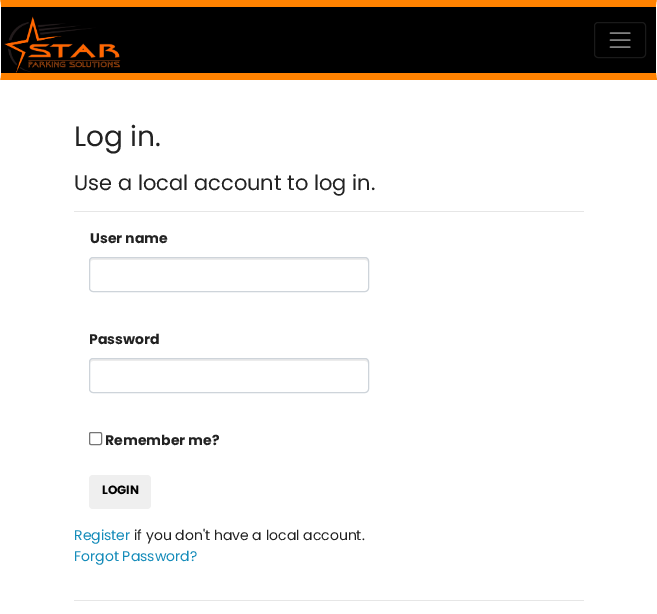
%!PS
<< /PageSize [657 614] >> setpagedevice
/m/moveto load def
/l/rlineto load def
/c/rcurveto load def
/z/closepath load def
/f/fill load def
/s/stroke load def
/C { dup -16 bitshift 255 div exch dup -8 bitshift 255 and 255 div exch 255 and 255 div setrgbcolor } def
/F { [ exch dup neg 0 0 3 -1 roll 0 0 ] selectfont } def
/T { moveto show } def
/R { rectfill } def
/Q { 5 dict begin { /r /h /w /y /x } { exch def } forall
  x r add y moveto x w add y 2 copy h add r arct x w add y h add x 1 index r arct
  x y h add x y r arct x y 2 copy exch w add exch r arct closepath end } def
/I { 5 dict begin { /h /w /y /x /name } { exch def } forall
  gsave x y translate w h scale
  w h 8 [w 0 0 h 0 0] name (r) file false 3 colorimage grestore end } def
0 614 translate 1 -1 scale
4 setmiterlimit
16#FFFFFF C
0 0 657 614 R
16#000000 C
1 7 655 66 R
16#FF8200 C
0 0 m 657 0 l -1 7 l -655 0 l z f
16#FFFFFF C
657 0 m 0 80 l -1 -7 l 0 -66 l z f
16#FF8200 C
657 80 m -657 0 l 1 -7 l 655 0 l z f
16#FFFFFF C
0 80 m 0 -80 l 1 7 l 0 66 l z f
(1.rgb) 4 16 117 57 I
16#1A1A1A C
594.5 22.5 51 35 3.5 Q s
(2.rgb) 609 32 22 16 I
/Poppins-Regular 28 F
16#222222 C
(Log in.) 74 146 T
/Poppins-Regular 21 F
(Use a local account to log in.) 74 190 T
16#E6E6E6 C
74 211 510 1 R
/Poppins-Bold 14 F
16#222222 C
(User name) 90 243 T
16#ECECEC C
93 260 m 272 0 l 2 0 3 1 3 3 c 0 -2 l 0 -2 -1 -3 -3 -3 c -272 0 l -2 0 -3 1 -3 3 c 0 2 l 0 -2 1 -3 3 -3 c z f
16#CED4DA C
89.5 257.5 279 34 3.5 Q s
16#222222 C
(Password) 89 344 T
16#ECECEC C
93 361 m 272 0 l 2 0 3 1 3 3 c 0 -2 l 0 -2 -1 -3 -3 -3 c -272 0 l -2 0 -3 1 -3 3 c 0 2 l 0 -2 1 -3 3 -3 c z f
16#CED4DA C
89.5 358.5 279 34 3.5 Q s
16#767676 C
89.5 432.5 12 12 1.5 Q s
16#222222 C
(Remember me?) 105 445 T
16#EFEFEF C
89 475 62 34 4 Q f
/Poppins-Bold 12 F
16#000000 C
(LOGIN) 102 494 T
/Poppins-Regular 14 F
16#158CBA C
(Register) 74 540 T
16#222222 C
(if you don't have a local account.) 134 540 T
16#158CBA C
(Forgot Password?) 74 561 T
16#E6E6E6 C
74 600 510 1 R
showpage
